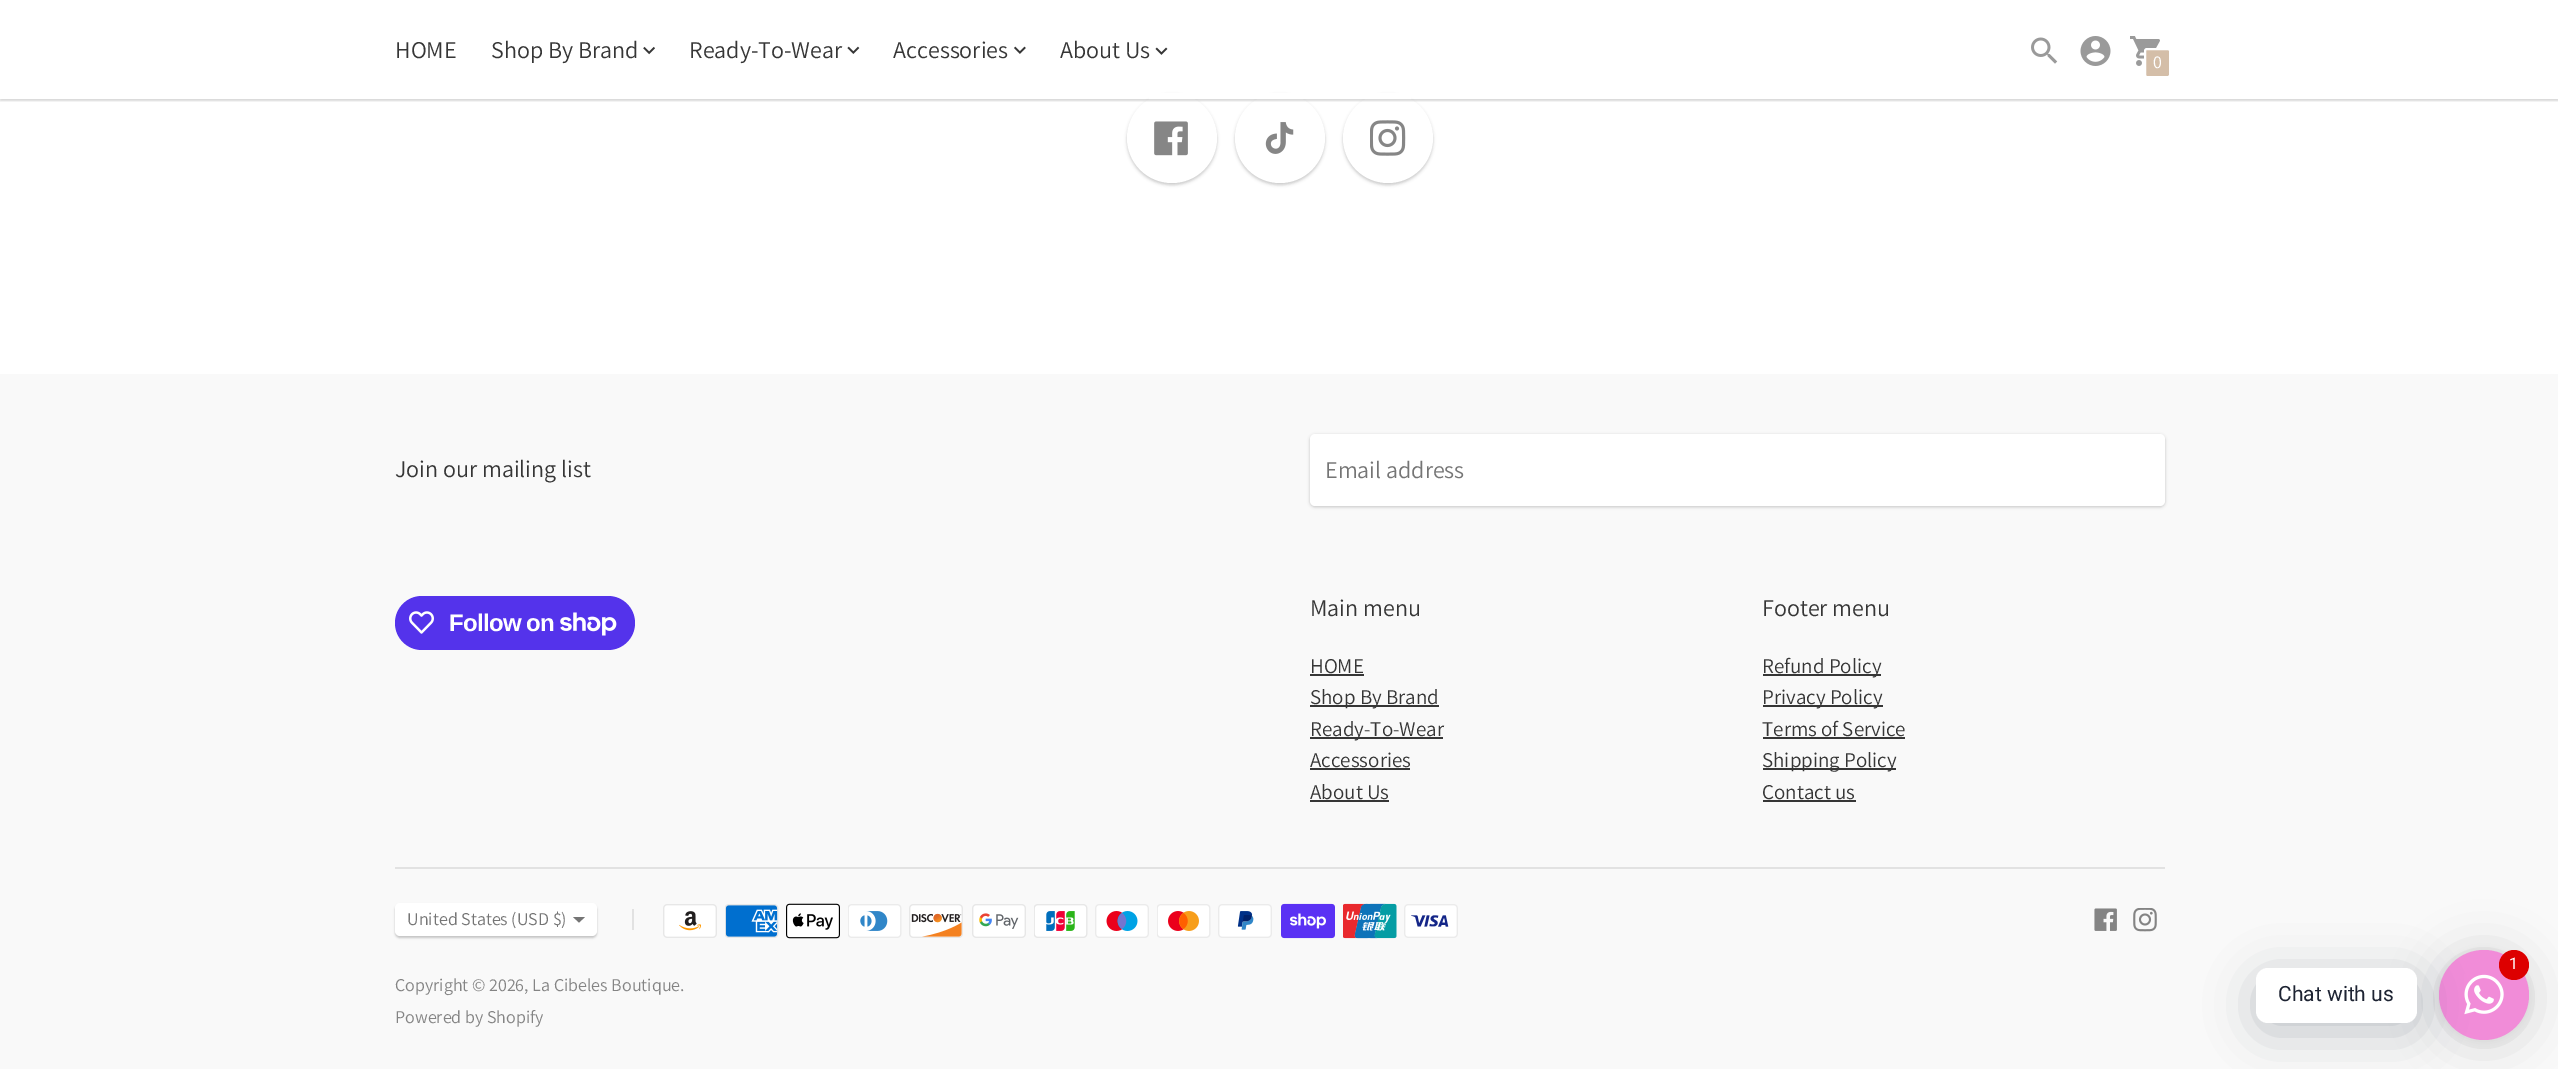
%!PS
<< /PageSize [2558 1069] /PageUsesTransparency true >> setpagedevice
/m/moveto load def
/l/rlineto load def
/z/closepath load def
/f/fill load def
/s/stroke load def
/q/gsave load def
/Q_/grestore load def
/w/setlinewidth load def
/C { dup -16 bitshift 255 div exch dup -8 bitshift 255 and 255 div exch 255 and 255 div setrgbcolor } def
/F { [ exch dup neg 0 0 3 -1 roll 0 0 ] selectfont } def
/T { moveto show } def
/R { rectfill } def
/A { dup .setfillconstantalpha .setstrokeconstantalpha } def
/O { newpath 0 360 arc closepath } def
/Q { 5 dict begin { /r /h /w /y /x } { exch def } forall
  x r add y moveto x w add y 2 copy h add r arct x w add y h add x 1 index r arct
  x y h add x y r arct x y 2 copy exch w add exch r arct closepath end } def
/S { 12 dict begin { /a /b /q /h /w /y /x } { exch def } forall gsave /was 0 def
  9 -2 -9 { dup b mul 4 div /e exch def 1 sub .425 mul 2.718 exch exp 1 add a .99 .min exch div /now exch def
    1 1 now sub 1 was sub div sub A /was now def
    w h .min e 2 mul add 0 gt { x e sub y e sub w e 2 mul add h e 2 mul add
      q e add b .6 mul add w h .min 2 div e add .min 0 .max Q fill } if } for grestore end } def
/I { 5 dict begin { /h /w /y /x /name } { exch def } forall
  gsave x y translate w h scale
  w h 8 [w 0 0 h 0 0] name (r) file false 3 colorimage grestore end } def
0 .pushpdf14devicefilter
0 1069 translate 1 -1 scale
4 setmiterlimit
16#FFFFFF C
0 0 2558 1069 R
16#000000 C
1127 95 90 90 45 1.5 .2 S
16#FFFFFF C
1172 138 45 O f
16#000000 C
1235 95 90 90 45 1.5 .2 S
16#FFFFFF C
1280 138 45 O f
16#000000 C
1343 95 90 90 45 1.5 .2 S
16#FFFFFF C
1388 138 45 O f
1149 93 262 6 R
q
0 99 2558 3 rectclip
16#000000 C
0 -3 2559 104 0 1 .15 S
Q_
/Assistant-Regular 24 F
16#363636 C
(HOME) 395 58 T
(Shop By Brand) 491 58 T
(1.rgb) 643 46 12 9 I
(Ready-To-Wear) 689 58 T
(2.rgb) 847 46 13 8 I
(Accessories) 893 58 T
(3.rgb) 1014 46 12 8 I
(About Us) 1060 58 T
(4.rgb) 1155 47 13 8 I
(5.rgb) 2031 37 27 27 I
(6.rgb) 2080 36 31 30 I
(7.rgb) 2130 36 30 30 I
16#D4BEA8 C
2145 49 25 28 2 Q q f Q_
16#FFFFFF C
2 w
s
/Assistant-Regular 18 F
(0) 2153 68 T
(8.rgb) 1154 121 34 35 I
(9.rgb) 1265 122 29 32 I
(10.rgb) 1370 120 36 36 I
16#F9F9F9 C
0 374 2558 695 R
/Assistant-Regular 24 F
16#363636 C
(Join our mailing list) 395 477 T
16#000000 C
1310 435 855 72 5 1.5 .2 S
16#FFFFFF C
1310 434 855 72 5 Q f
16#757575 C
(Email address) 1325 478 T
16#5433EB C
395 596 240 54 27 Q f
(11.rgb) 409 611 25 23 I
/LiberationSans-Bold 24 F
16#FFFFFF C
449 631 m -.75 0 (Follow on) ashow
(12.rgb) 560 612 57 24 I
/Assistant-Regular 24 F
16#363636 C
(Main menu) 1310 616 T
/Assistant-Regular 21 F
(HOME) 1310 673 T
1310 674 54 2 R
1310 705 129 2 R
(Shop By Brand) 1310 704 T
1310 737 133 2 R
(Ready-To-Wear) 1310 736 T
(Accessories) 1310 767 T
1310 768 100 2 R
(About Us) 1310 799 T
1310 800 79 2 R
/Assistant-Regular 24 F
(Footer menu) 1762 616 T
1763 674 118 2 R
/Assistant-Regular 21 F
(Refund Policy) 1762 673 T
1763 705 120 2 R
(Privacy Policy) 1762 704 T
(Terms of Service) 1762 736 T
1763 737 142 2 R
1763 768 133 2 R
(Shipping Policy) 1762 767 T
(Contact us) 1762 799 T
1763 800 93 2 R
16#E2E2E2 C
395 867 1770 2 R
16#000000 C
395 905 202 33 5 1 .2 S
16#FFFFFF C
395 903 202 33 5 Q f
/Assistant-Regular 18 F
16#757575 C
(United States \(USD $\)) 407 925 T
579 922.5 m 6 -5.5 l -12 0 l z f
16#E2E2E2 C
632 909 2 21 R
(13.rgb) 663 904 54 34 I
(14.rgb) 725 904 54 34 I
(15.rgb) 786 903 54 36 I
(16.rgb) 848 904 54 34 I
(17.rgb) 909 904 54 34 I
(18.rgb) 972 904 54 34 I
(19.rgb) 1034 904 54 34 I
(20.rgb) 1095 904 54 34 I
(21.rgb) 1157 904 54 34 I
(22.rgb) 1218 904 54 34 I
(23.rgb) 1281 903 54 36 I
(24.rgb) 1343 903 54 36 I
(25.rgb) 1404 904 54 34 I
16#848484 C
(Copyright © 2026, La Cibeles Boutique.) 395 991 T
(Powered by Shopify) 395 1023 T
(26.rgb) 2094 908 23 23 I
(27.rgb) 2133 908 24 24 I
16#000000 C
2439 953 90 90 45 24 .16 S
2439 951 90 90 45 4.5 .06 S
16#F18CD8 C
2484 995 45 O f
16#00122E C
2256 977 161 55 12 24 .24 S
(28.rgb) 2464 974 40 41 I
16#DD0000 C
2514 965 15 O f
/Roboto-Regular 16 F
16#FFFFFF C
(1) 2509 969 T
2256 968 161 55 12 Q f
/Roboto-Regular 21 F
16#1E2433 C
(Chat with us) 2278 1001 T
.poppdf14devicefilter showpage
